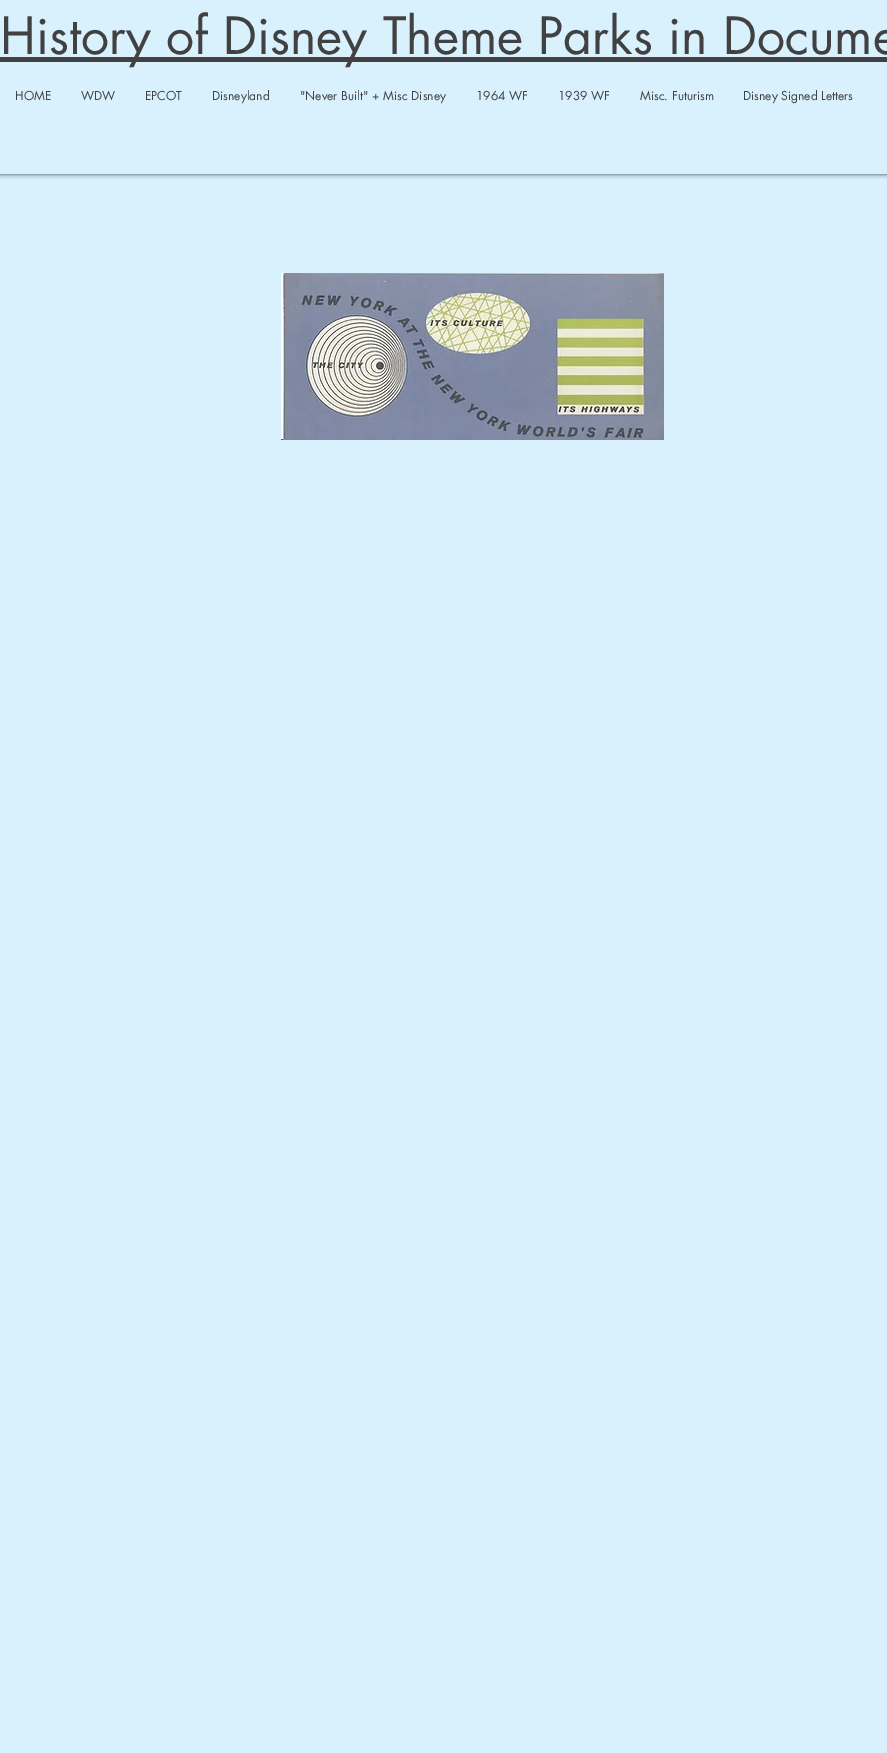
%!PS
<< /PageSize [887 1753] /PageUsesTransparency true >> setpagedevice
/q/gsave load def
/Q_/grestore load def
/C { dup -16 bitshift 255 div exch dup -8 bitshift 255 and 255 div exch 255 and 255 div setrgbcolor } def
/F { [ exch dup neg 0 0 3 -1 roll 0 0 ] selectfont } def
/T { moveto show } def
/R { rectfill } def
/A { dup .setfillconstantalpha .setstrokeconstantalpha } def
/Q { 5 dict begin { /r /h /w /y /x } { exch def } forall
  x r add y moveto x w add y 2 copy h add r arct x w add y h add x 1 index r arct
  x y h add x y r arct x y 2 copy exch w add exch r arct closepath end } def
/S { 12 dict begin { /a /b /q /h /w /y /x } { exch def } forall gsave /was 0 def
  9 -2 -9 { dup b mul 4 div /e exch def 1 sub .425 mul 2.718 exch exp 1 add a .99 .min exch div /now exch def
    1 1 now sub 1 was sub div sub A /was now def
    w h .min e 2 mul add 0 gt { x e sub y e sub w e 2 mul add h e 2 mul add
      q e add b .6 mul add w h .min 2 div e add .min 0 .max Q fill } if } for grestore end } def
/I { 5 dict begin { /h /w /y /x /name } { exch def } forall
  gsave x y translate w h scale
  w h 8 [w 0 0 h 0 0] name (r) file false 3 colorimage grestore end } def
0 .pushpdf14devicefilter
0 1753 translate 1 -1 scale
4 setmiterlimit
16#D9F0FD C
0 0 887 1753 R
q
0 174 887 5 rectclip
16#000000 C
0 0 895 174 0 2.5 .7 S
Q_
16#414141 C
0 57 887 5 R
/futura-Regular 50 F
(History of Disney Theme Parks in Docume) 0 54 T
/futura-Regular 12 F
(HOME) 15 100 T
(WDW) 81 100 T
(EPCOT) 145 100 T
(Disneyland) 212 100 T
("Never Built" + Misc Disney) 300 100 T
(1964 WF) 476 100 T
(1939 WF) 558 100 T
(Misc. Futurism) 640 100 T
(Disney Signed Letters) 743 100 T
(1.rgb) 281 273 383 167 I
.poppdf14devicefilter showpage
